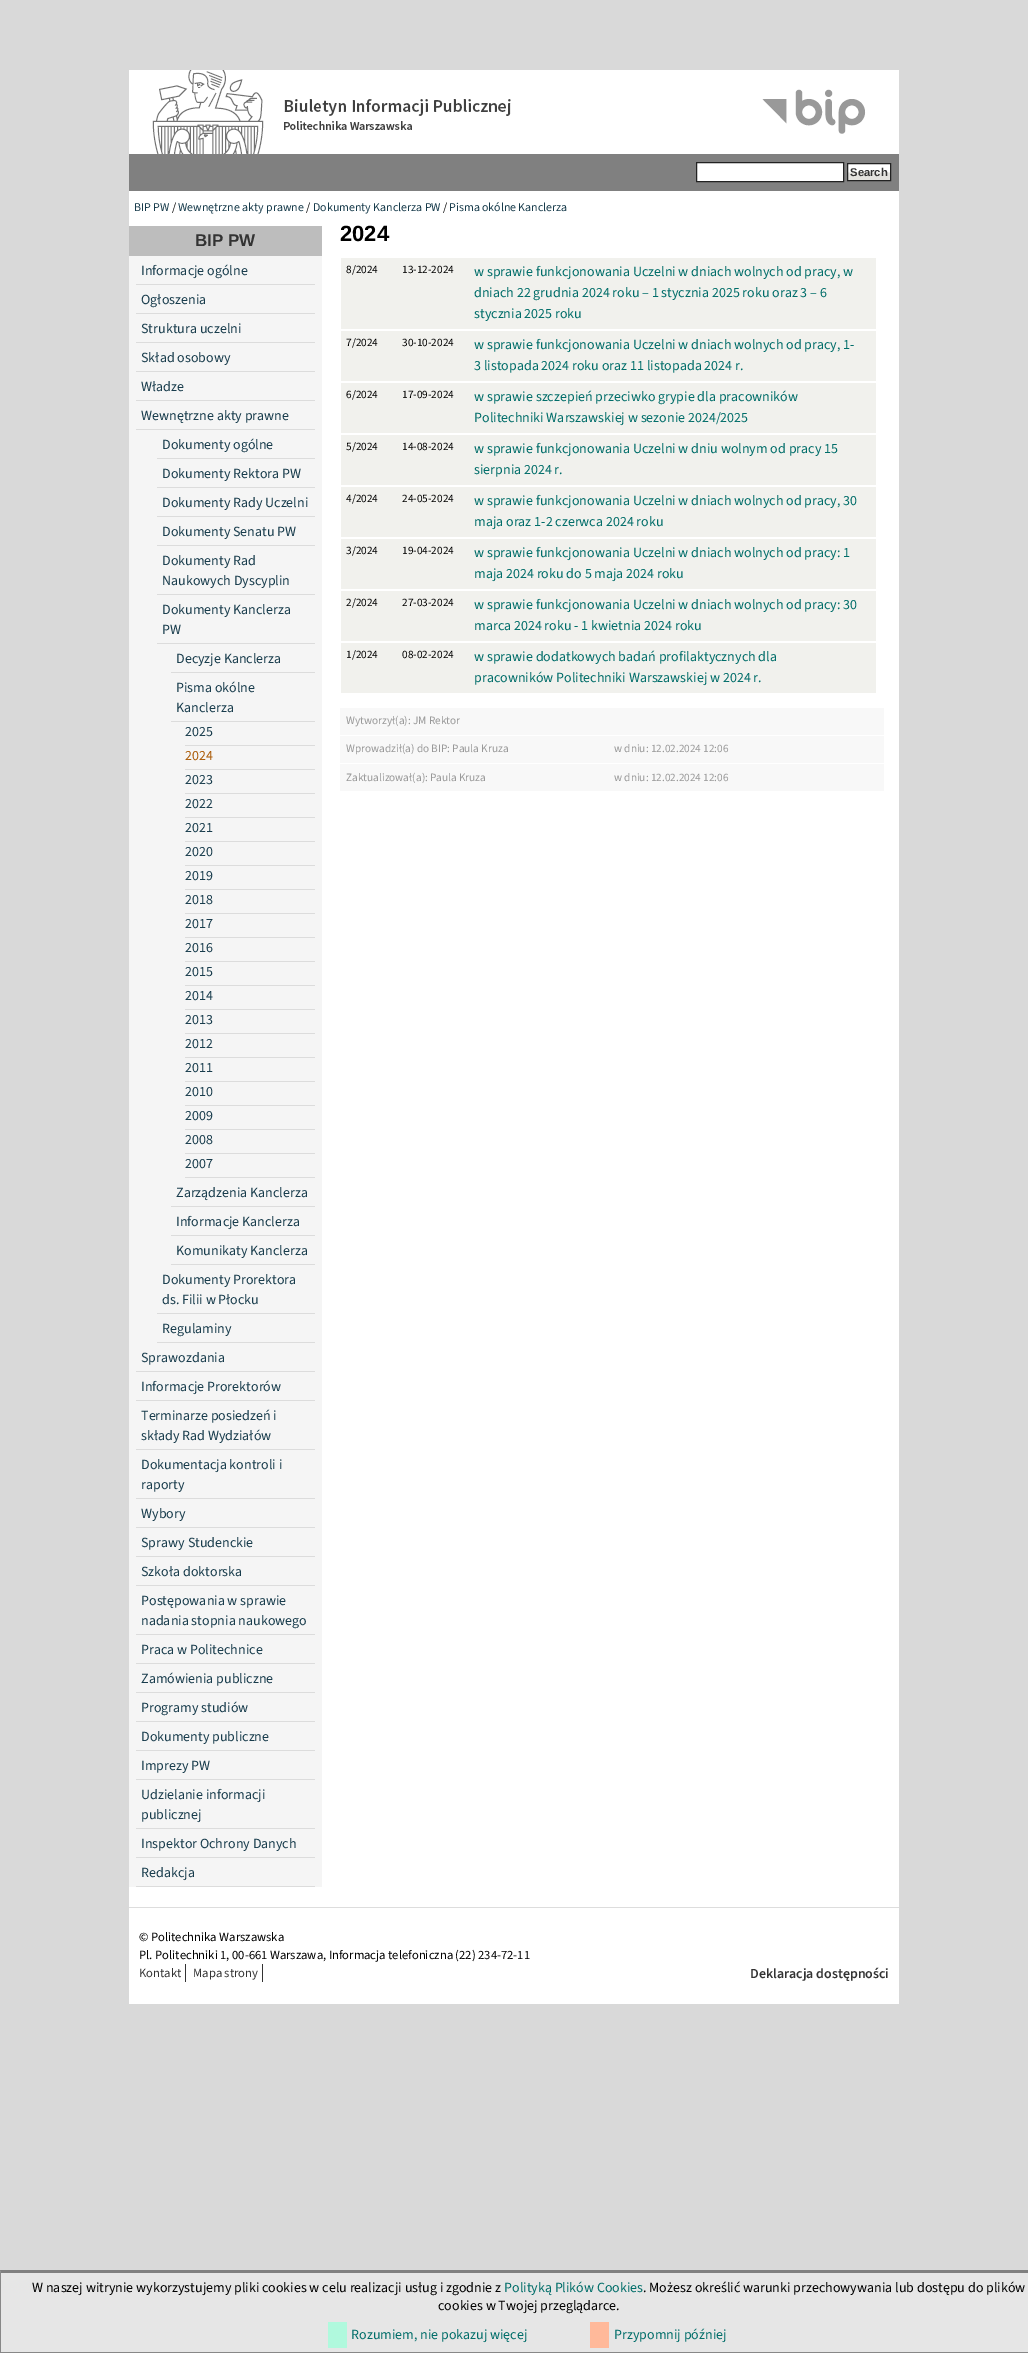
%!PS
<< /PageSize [1028 2353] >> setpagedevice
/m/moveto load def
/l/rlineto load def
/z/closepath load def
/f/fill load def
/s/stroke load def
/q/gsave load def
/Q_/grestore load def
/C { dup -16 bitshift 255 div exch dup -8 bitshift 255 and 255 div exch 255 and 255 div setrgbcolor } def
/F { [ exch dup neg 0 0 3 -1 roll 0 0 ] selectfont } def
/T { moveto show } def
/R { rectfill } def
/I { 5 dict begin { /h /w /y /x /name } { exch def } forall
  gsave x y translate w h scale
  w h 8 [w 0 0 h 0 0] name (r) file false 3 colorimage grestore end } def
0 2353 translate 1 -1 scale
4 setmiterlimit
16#D9D9D9 C
0 0 1028 2353 R
16#FFFFFF C
129 70 770 84 R
(1.rgb) 152 70 714 84 I
16#808080 C
129 154 770 37 R
16#FFFFFF C
696.5 162.5 m 147 0 l 0 19 l -147 0 l z q f Q_
16#222222 C
s
(2.rgb) 848 164 42 16 I
847.5 163.5 43 17 rectstroke
/LiberationSans-Bold 11.25 F
16#333333 C
(Search) 850 176 T
16#FFFFFF C
129 191 770 1716 R
/SourceSans3-Regular 11.9 F
16#183C4C C
(BIP PW) 134 211 T
16#000000 C
(/) 172 211 T
16#183C4C C
(Wewnętrzne akty prawne) 178 211 T
16#000000 C
(/) 306 211 T
16#183C4C C
(Dokumenty Kanclerza PW) 313 211 T
16#000000 C
(/) 443 211 T
16#183C4C C
(Pisma okólne Kanclerza) 449 211 T
16#F5F5F5 C
129 256 193 1631 R
16#BDBDBD C
129 226 193 30 R
/LiberationSans-Bold 17 F
16#333333 C
(BIP PW) 195 246 T
16#DCDCDC C
136 284 179 1 R
/SourceSans3-Regular 14 F
16#183C4C C
(Informacje ogólne) 141 275 T
16#DCDCDC C
136 313 179 1 R
16#183C4C C
(Ogłoszenia) 141 304 T
16#DCDCDC C
136 342 179 1 R
16#183C4C C
(Struktura uczelni) 141 333 T
16#DCDCDC C
136 371 179 1 R
16#183C4C C
(Skład osobowy) 141 362 T
16#DCDCDC C
136 400 179 1 R
16#183C4C C
(Władze) 141 391 T
16#DCDCDC C
136 429 179 1 R
16#183C4C C
(Wewnętrzne akty prawne) 141 420 T
16#DCDCDC C
157 458 158 1 R
16#183C4C C
(Dokumenty ogólne) 162 449 T
16#DCDCDC C
157 487 158 1 R
16#183C4C C
(Dokumenty Rektora PW) 162 478 T
16#DCDCDC C
157 516 158 1 R
16#183C4C C
(Dokumenty Rady Uczelni) 162 507 T
16#DCDCDC C
157 545 158 1 R
16#183C4C C
(Dokumenty Senatu PW) 162 536 T
16#DCDCDC C
157 594 158 1 R
16#183C4C C
(Dokumenty Rad) 162 565 T
(Naukowych Dyscyplin) 162 585 T
16#DCDCDC C
157 643 158 1 R
16#183C4C C
(Dokumenty Kanclerza) 162 614 T
(PW) 162 634 T
16#DCDCDC C
171 672 144 1 R
16#183C4C C
(Decyzje Kanclerza) 176 663 T
16#DCDCDC C
171 721 144 1 R
16#183C4C C
(Pisma okólne) 176 692 T
(Kanclerza) 176 712 T
16#DCDCDC C
185 745 130 1 R
16#183C4C C
(2025) 185 736 T
16#DCDCDC C
185 769 130 1 R
16#AB5B07 C
(2024) 185 760 T
16#DCDCDC C
185 793 130 1 R
16#183C4C C
(2023) 185 784 T
16#DCDCDC C
185 817 130 1 R
16#183C4C C
(2022) 185 808 T
16#DCDCDC C
185 841 130 1 R
16#183C4C C
(2021) 185 832 T
16#DCDCDC C
185 865 130 1 R
16#183C4C C
(2020) 185 856 T
16#DCDCDC C
185 889 130 1 R
16#183C4C C
(2019) 185 880 T
16#DCDCDC C
185 913 130 1 R
16#183C4C C
(2018) 185 904 T
16#DCDCDC C
185 937 130 1 R
16#183C4C C
(2017) 185 928 T
16#DCDCDC C
185 961 130 1 R
16#183C4C C
(2016) 185 952 T
16#DCDCDC C
185 985 130 1 R
16#183C4C C
(2015) 185 976 T
16#DCDCDC C
185 1009 130 1 R
16#183C4C C
(2014) 185 1000 T
16#DCDCDC C
185 1033 130 1 R
16#183C4C C
(2013) 185 1024 T
16#DCDCDC C
185 1057 130 1 R
16#183C4C C
(2012) 185 1048 T
16#DCDCDC C
185 1081 130 1 R
16#183C4C C
(2011) 185 1072 T
16#DCDCDC C
185 1105 130 1 R
16#183C4C C
(2010) 185 1096 T
16#DCDCDC C
185 1129 130 1 R
16#183C4C C
(2009) 185 1120 T
16#DCDCDC C
185 1153 130 1 R
16#183C4C C
(2008) 185 1144 T
16#DCDCDC C
185 1177 130 1 R
16#183C4C C
(2007) 185 1168 T
16#DCDCDC C
171 1206 144 1 R
16#183C4C C
(Zarządzenia Kanclerza) 176 1197 T
16#DCDCDC C
171 1235 144 1 R
16#183C4C C
(Informacje Kanclerza) 176 1226 T
16#DCDCDC C
171 1264 144 1 R
16#183C4C C
(Komunikaty Kanclerza) 176 1255 T
16#DCDCDC C
157 1313 158 1 R
16#183C4C C
(Dokumenty Prorektora) 162 1284 T
(ds. Filii w Płocku) 162 1304 T
16#DCDCDC C
157 1342 158 1 R
16#183C4C C
(Regulaminy) 162 1333 T
16#DCDCDC C
136 1371 179 1 R
16#183C4C C
(Sprawozdania) 141 1362 T
16#DCDCDC C
136 1400 179 1 R
16#183C4C C
(Informacje Prorektorów) 141 1391 T
16#DCDCDC C
136 1449 179 1 R
16#183C4C C
(Terminarze posiedzeń i) 141 1420 T
(składy Rad Wydziałów) 141 1440 T
16#DCDCDC C
136 1498 179 1 R
16#183C4C C
(Dokumentacja kontroli i) 141 1469 T
(raporty) 141 1489 T
16#DCDCDC C
136 1527 179 1 R
16#183C4C C
(Wybory) 141 1518 T
16#DCDCDC C
136 1556 179 1 R
16#183C4C C
(Sprawy Studenckie) 141 1547 T
16#DCDCDC C
136 1585 179 1 R
16#183C4C C
(Szkoła doktorska) 141 1576 T
16#DCDCDC C
136 1634 179 1 R
16#183C4C C
(Postępowania w sprawie) 141 1605 T
(nadania stopnia naukowego) 141 1625 T
16#DCDCDC C
136 1663 179 1 R
16#183C4C C
(Praca w Politechnice) 141 1654 T
16#DCDCDC C
136 1692 179 1 R
16#183C4C C
(Zamówienia publiczne) 141 1683 T
16#DCDCDC C
136 1721 179 1 R
16#183C4C C
(Programy studiów) 141 1712 T
16#DCDCDC C
136 1750 179 1 R
16#183C4C C
(Dokumenty publiczne) 141 1741 T
16#DCDCDC C
136 1779 179 1 R
16#183C4C C
(Imprezy PW) 141 1770 T
16#DCDCDC C
136 1828 179 1 R
16#183C4C C
(Udzielanie informacji) 141 1799 T
(publicznej) 141 1819 T
16#DCDCDC C
136 1857 179 1 R
16#183C4C C
(Inspektor Ochrony Danych) 141 1848 T
16#DCDCDC C
136 1886 179 1 R
16#183C4C C
(Redakcja) 141 1877 T
/LiberationSans-Bold 22 F
16#000000 C
(2024) 340 241 T
16#F1F1ED C
341 258 535 71 R
/SourceSans3-Regular 11.25 F
16#000000 C
(8/2024) 346 273 T
(13-12-2024) 402 273 T
/SourceSans3-Regular 14 F
16#006D69 C
(w sprawie funkcjonowania Uczelni w dniach wolnych od pracy, w) 474 276 T
(dniach 22 grudnia 2024 roku – 1 stycznia 2025 roku oraz 3 – 6) 474 297 T
(stycznia 2025 roku) 474 318 T
16#F1F1ED C
341 331 535 50 R
/SourceSans3-Regular 11.25 F
16#000000 C
(7/2024) 346 346 T
(30-10-2024) 402 346 T
/SourceSans3-Regular 14 F
16#006D69 C
(w sprawie funkcjonowania Uczelni w dniach wolnych od pracy, 1-) 474 349 T
(3 listopada 2024 roku oraz 11 listopada 2024 r.) 474 370 T
16#F1F1ED C
341 383 535 50 R
/SourceSans3-Regular 11.25 F
16#000000 C
(6/2024) 346 398 T
(17-09-2024) 402 398 T
/SourceSans3-Regular 14 F
16#006D69 C
(w sprawie szczepień przeciwko grypie dla pracowników) 474 401 T
(Politechniki Warszawskiej w sezonie 2024/2025) 474 422 T
16#F1F1ED C
341 435 535 50 R
/SourceSans3-Regular 11.25 F
16#000000 C
(5/2024) 346 450 T
(14-08-2024) 402 450 T
/SourceSans3-Regular 14 F
16#006D69 C
(w sprawie funkcjonowania Uczelni w dniu wolnym od pracy 15) 474 453 T
(sierpnia 2024 r.) 474 474 T
16#F1F1ED C
341 487 535 50 R
/SourceSans3-Regular 11.25 F
16#000000 C
(4/2024) 346 502 T
(24-05-2024) 402 502 T
/SourceSans3-Regular 14 F
16#006D69 C
(w sprawie funkcjonowania Uczelni w dniach wolnych od pracy, 30) 474 505 T
(maja oraz 1-2 czerwca 2024 roku) 474 526 T
16#F1F1ED C
341 539 535 50 R
/SourceSans3-Regular 11.25 F
16#000000 C
(3/2024) 346 554 T
(19-04-2024) 402 554 T
/SourceSans3-Regular 14 F
16#006D69 C
(w sprawie funkcjonowania Uczelni w dniach wolnych od pracy: 1) 474 557 T
(maja 2024 roku do 5 maja 2024 roku) 474 578 T
16#F1F1ED C
341 591 535 50 R
/SourceSans3-Regular 11.25 F
16#000000 C
(2/2024) 346 606 T
(27-03-2024) 402 606 T
/SourceSans3-Regular 14 F
16#006D69 C
(w sprawie funkcjonowania Uczelni w dniach wolnych od pracy: 30) 474 609 T
(marca 2024 roku - 1 kwietnia 2024 roku) 474 630 T
16#F1F1ED C
341 643 535 50 R
/SourceSans3-Regular 11.25 F
16#000000 C
(1/2024) 346 658 T
(08-02-2024) 402 658 T
/SourceSans3-Regular 14 F
16#006D69 C
(w sprawie dodatkowych badań profilaktycznych dla) 474 661 T
(pracowników Politechniki Warszawskiej w 2024 r.) 474 682 T
16#F8F8F8 C
340 708 544 27 R
/SourceSans3-Regular 11.25 F
16#999999 C
(Wytworzył\(a\): JM Rektor) 346 724 T
16#F8F8F8 C
340 736 544 27 R
16#999999 C
(Wprowadził\(a\) do BIP: Paula Kruza) 346 752 T
(w dniu: 12.02.2024 12:06) 614 752 T
16#F8F8F8 C
340 764 544 27 R
16#999999 C
(Zaktualizował\(a\): Paula Kruza) 346 781 T
(w dniu: 12.02.2024 12:06) 614 781 T
16#FFFFFF C
129 1908 770 96 R
16#DDDDDD C
129 1907 770 1 R
/SourceSans3-Regular 12.6 F
16#000000 C
(© Politechnika Warszawska) 139 1941 T
(Pl. Politechniki 1, 00-661 Warszawa, Informacja telefoniczna \(22\) 234-72-11) 139 1959 T
16#333333 C
(Kontakt) 139 1977 T
185 1964 1 18 R
(Mapa strony) 193 1977 T
262 1964 1 18 R
/SourceSans3-SemiBold 13.9 F
(Deklaracja dostępności) 750 1978 T
16#E6E6E6 C
1 2273 1027 79 R
16#808080 C
0 2270 m 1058 0 l -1 3 l -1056 0 l z f
16#888888 C
0 2352 1028 1 R
0 2353 m 0 -83 l 1 3 l 0 79 l z f
/SourceSans3-Regular 14 F
16#000000 C
(W naszej witrynie wykorzystujemy pliki cookies w celu realizacji usług i zgodnie z) 32 2292 T
16#006D69 C
(Polityką Plików Cookies) 504 2292 T
16#000000 C
(. Możesz określić warunki przechowywania lub dostępu do plików) 643 2292 T
(cookies w Twojej przeglądarce.) 438 2310 T
16#B0F9DD C
328 2322 19 26 R
16#006D69 C
(Rozumiem, nie pokazuj więcej) 351 2339 T
16#FFB99A C
590 2322 19 26 R
16#006D69 C
(Przypomnij później) 614 2339 T
showpage
